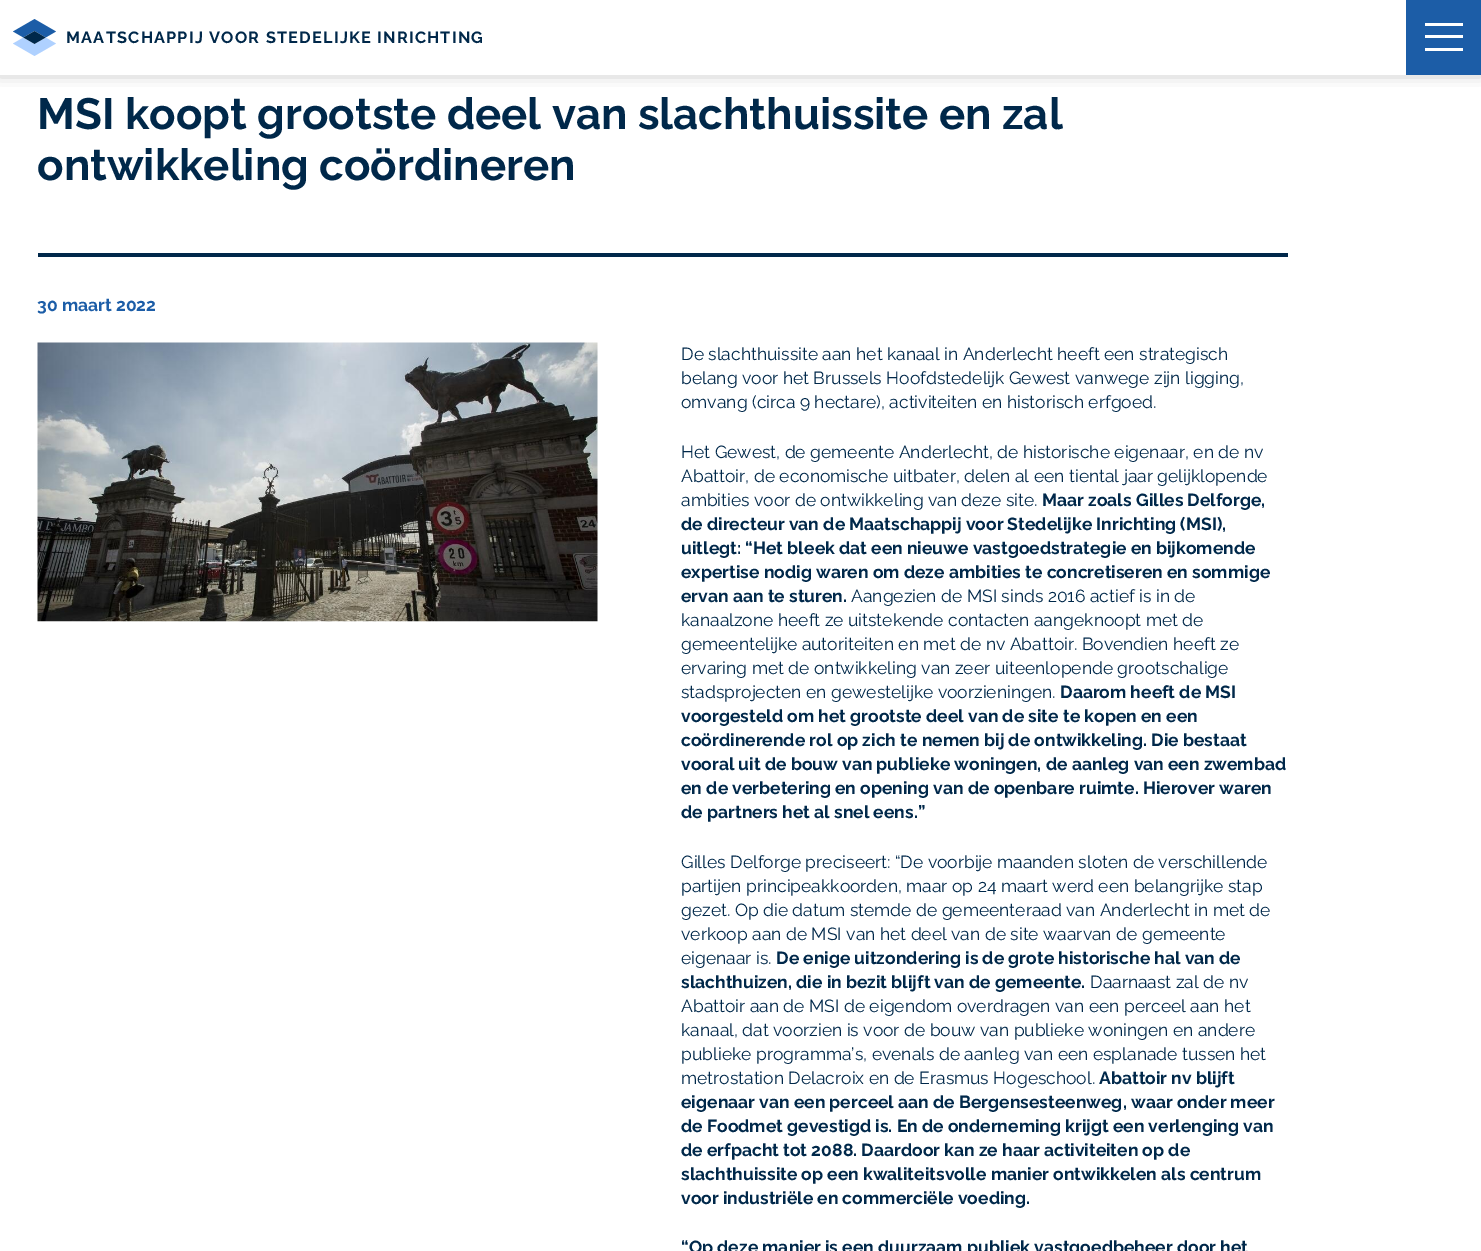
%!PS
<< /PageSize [1481 1251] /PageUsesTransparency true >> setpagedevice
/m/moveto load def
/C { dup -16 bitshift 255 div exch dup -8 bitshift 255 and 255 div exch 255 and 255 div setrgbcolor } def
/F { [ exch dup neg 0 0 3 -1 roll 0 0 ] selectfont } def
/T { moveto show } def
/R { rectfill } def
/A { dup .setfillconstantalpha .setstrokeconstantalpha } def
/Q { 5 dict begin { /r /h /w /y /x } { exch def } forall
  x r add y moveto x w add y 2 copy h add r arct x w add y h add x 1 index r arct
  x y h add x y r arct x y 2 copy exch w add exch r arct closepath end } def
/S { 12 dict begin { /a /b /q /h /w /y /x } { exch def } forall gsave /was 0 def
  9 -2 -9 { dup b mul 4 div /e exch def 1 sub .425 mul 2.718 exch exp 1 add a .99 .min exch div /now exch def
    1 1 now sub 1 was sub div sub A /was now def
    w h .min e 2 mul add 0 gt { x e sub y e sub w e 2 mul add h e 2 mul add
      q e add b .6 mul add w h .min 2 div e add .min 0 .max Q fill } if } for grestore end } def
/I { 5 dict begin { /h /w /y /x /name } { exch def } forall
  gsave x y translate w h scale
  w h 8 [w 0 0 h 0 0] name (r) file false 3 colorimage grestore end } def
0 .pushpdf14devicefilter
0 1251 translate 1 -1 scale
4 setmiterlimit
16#FFFFFF C
0 0 1481 1251 R
16#000000 C
0 -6 1481 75 0 8 .6 S
16#FFFFFF C
0 0 1406 75 R
(1.rgb) 13 19 43 37 I
/Raleway-Bold 16.25 F
16#00284A C
66 43 m 1.25 0 (MAATSCHAPPIJ VOOR STEDELIJKE INRICHTING) ashow
16#1C5DA7 C
1406 0 75 75 R
16#FFFFFF C
1425 35 38 3 R
1425 23 38 3 R
1425 48 38 3 R
16#00284A C
38 253 1250 4 R
/Raleway-Bold 43.75 F
(MSI koopt grootste deel van slachthuissite en zal) 37 129 T
(ontwikkeling coördineren) 37 180 T
/Raleway-Bold 17.5 F
16#1C5DA7 C
(30 maart 2022) 37 311 T
(2.rgb) 37 342 561 280 I
/Raleway-Regular 17.5 F
16#00284A C
(De slachthuissite aan het kanaal in Anderlecht heeft een strategisch) 681 360 T
(belang voor het Brussels Hoofdstedelijk Gewest vanwege zijn ligging,) 681 384 T
(omvang \(circa 9 hectare\), activiteiten en historisch erfgoed.) 681 408 T
(Het Gewest, de gemeente Anderlecht, de historische eigenaar, en de nv) 681 458 T
(Abattoir, de economische uitbater, delen al een tiental jaar gelijklopende) 681 482 T
(ambities voor de ontwikkeling van deze site.) 681 506 T
/Raleway-Bold 17.5 F
(Maar zoals Gilles Delforge,) 1042 506 T
(de directeur van de Maatschappij voor Stedelijke Inrichting \(MSI\),) 681 530 T
(uitlegt: “Het bleek dat een nieuwe vastgoedstrategie en bijkomende) 681 554 T
(expertise nodig waren om deze ambities te concretiseren en sommige) 681 578 T
(ervan aan te sturen.) 681 602 T
/Raleway-Regular 17.5 F
(Aangezien de MSI sinds 2016 actief is in de) 851 602 T
(kanaalzone heeft ze uitstekende contacten aangeknoopt met de) 681 626 T
(gemeentelijke autoriteiten en met de nv Abattoir. Bovendien heeft ze) 681 650 T
(ervaring met de ontwikkeling van zeer uiteenlopende grootschalige) 681 674 T
(stadsprojecten en gewestelijke voorzieningen.) 681 698 T
/Raleway-Bold 17.5 F
(Daarom heeft de MSI) 1060 698 T
(voorgesteld om het grootste deel van de site te kopen en een) 681 722 T
(coördinerende rol op zich te nemen bij de ontwikkeling. Die bestaat) 681 746 T
(vooral uit de bouw van publieke woningen, de aanleg van een zwembad) 681 770 T
(en de verbetering en opening van de openbare ruimte. Hierover waren) 681 794 T
(de partners het al snel eens.”) 681 818 T
/Raleway-Regular 17.5 F
(Gilles Delforge preciseert: “De voorbije maanden sloten de verschillende) 681 868 T
(partijen principeakkoorden, maar op 24 maart werd een belangrijke stap) 681 892 T
(gezet. Op die datum stemde de gemeenteraad van Anderlecht in met de) 681 916 T
(verkoop aan de MSI van het deel van de site waarvan de gemeente) 681 940 T
(eigenaar is.) 681 964 T
/Raleway-Bold 17.5 F
(De enige uitzondering is de grote historische hal van de) 776 964 T
(slachthuizen, die in bezit blijft van de gemeente.) 681 988 T
/Raleway-Regular 17.5 F
(Daarnaast zal de nv) 1090 988 T
(Abattoir aan de MSI de eigendom overdragen van een perceel aan het) 681 1012 T
(kanaal, dat voorzien is voor de bouw van publieke woningen en andere) 681 1036 T
(publieke programma’s, evenals de aanleg van een esplanade tussen het) 681 1060 T
(metrostation Delacroix en de Erasmus Hogeschool.) 681 1084 T
/Raleway-Bold 17.5 F
(Abattoir nv blijft) 1099 1084 T
(eigenaar van een perceel aan de Bergensesteenweg, waar onder meer) 681 1108 T
(de Foodmet gevestigd is. En de onderneming krijgt een verlenging van) 681 1132 T
(de erfpacht tot 2088. Daardoor kan ze haar activiteiten op de) 681 1156 T
(slachthuissite op een kwaliteitsvolle manier ontwikkelen als centrum) 681 1180 T
(voor industriële en commerciële voeding.) 681 1204 T
(“Op deze manier is een duurzaam publiek vastgoedbeheer door het) 681 1253 T
.poppdf14devicefilter showpage
